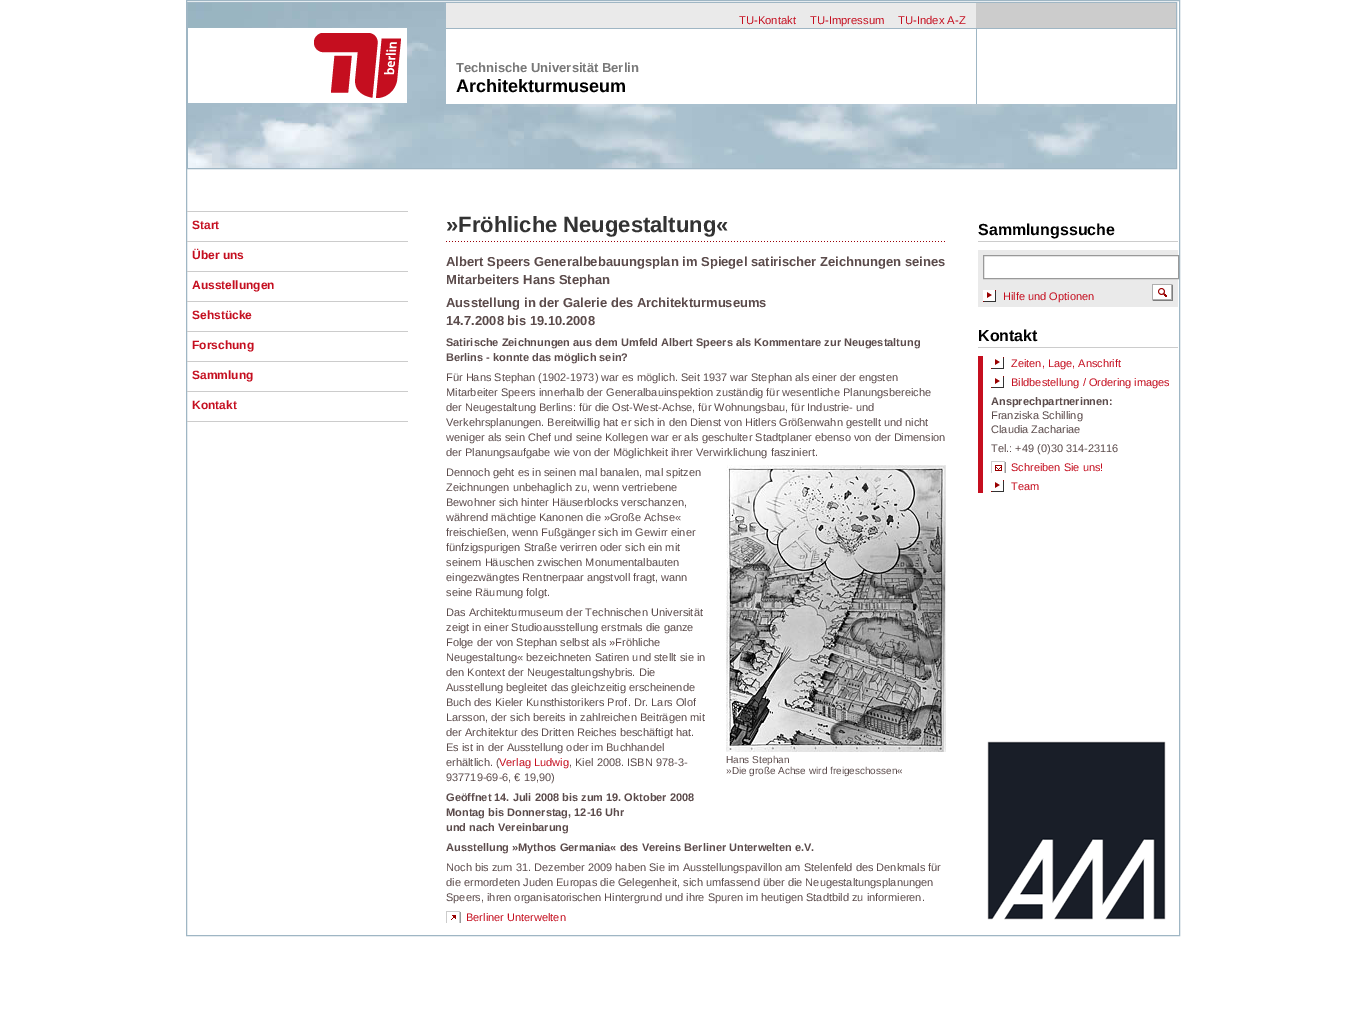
%!PS
<< /PageSize [1365 1025] >> setpagedevice
/m/moveto load def
/l/rlineto load def
/z/closepath load def
/f/fill load def
/s/stroke load def
/q/gsave load def
/Q_/grestore load def
/C { dup -16 bitshift 255 div exch dup -8 bitshift 255 and 255 div exch 255 and 255 div setrgbcolor } def
/F { [ exch dup neg 0 0 3 -1 roll 0 0 ] selectfont } def
/T { moveto show } def
/R { rectfill } def
/I { 5 dict begin { /h /w /y /x /name } { exch def } forall
  gsave x y translate w h scale
  w h 8 [w 0 0 h 0 0] name (r) file false 3 colorimage grestore end } def
0 1025 translate 1 -1 scale
4 setmiterlimit
16#FFFFFF C
0 0 1365 1025 R
16#9FB6C4 C
186.5 .5 993 935 rectstroke
187.5 2.5 989 166 rectstroke
(1.rgb) 188 3 988 165 I
16#EAEAEA C
446 3 530 25 R
/LiberationSans-Regular 11.25 F
16#C50E1F C
(TU-Kontakt) 739 24 T
(TU-Impressum) 810 24 T
(TU-Index A-Z) 898 24 T
16#CCCCCC C
976 3 200 25 R
16#FFFFFF C
188 28 219 75 R
(2.rgb) 314 33 87 65 I
446 29 530 75 R
16#9FB6C4 C
446 28 731 1 R
976 28 1 76 R
/LiberationSans-Bold 13 F
16#787878 C
(Technische Universität Berlin) 456 72 T
/LiberationSans-Bold 18 F
16#000000 C
(Architekturmuseum) 456 92 T
16#FFFFFF C
977 29 199 75 R
16#CCCCCC C
187 211 221 1 R
187 241 221 1 R
/LiberationSans-Bold 12 F
16#C50E1F C
(Start) 192 229 T
16#CCCCCC C
187 271 221 1 R
16#C50E1F C
(Über uns) 192 259 T
16#CCCCCC C
187 301 221 1 R
16#C50E1F C
(Ausstellungen) 192 289 T
16#CCCCCC C
187 331 221 1 R
16#C50E1F C
(Sehstücke) 192 319 T
16#CCCCCC C
187 361 221 1 R
16#C50E1F C
(Forschung) 192 349 T
16#CCCCCC C
187 391 221 1 R
16#C50E1F C
(Sammlung) 192 379 T
16#CCCCCC C
187 421 221 1 R
16#C50E1F C
(Kontakt) 192 409 T
(3.rgb) 446 241 499 1 I
/LiberationSans-Bold 22 F
16#333333 C
(»Fröhliche Neugestaltung«) 446 232 T
/LiberationSans-Bold 13 F
16#5B4B4B C
(Albert Speers Generalbebauungsplan im Spiegel satirischer Zeichnungen seines) 446 266 T
(Mitarbeiters Hans Stephan) 446 284 T
(Ausstellung in der Galerie des Architekturmuseums) 446 307 T
(14.7.2008 bis 19.10.2008) 446 325 T
/LiberationSans-Bold 11 F
(Satirische Zeichnungen aus dem Umfeld Albert Speers als Kommentare zur Neugestaltung) 446 346 T
(Berlins - konnte das möglich sein?) 446 361 T
/LiberationSans-Regular 11 F
(Für Hans Stephan \(1902-1973\) war es möglich. Seit 1937 war Stephan als einer der engsten) 446 381 T
(Mitarbeiter Speers innerhalb der Generalbauinspektion zuständig für wesentliche Planungsbereiche) 446 396 T
(der Neugestaltung Berlins: für die Ost-West-Achse, für Wohnungsbau, für Industrie- und) 446 411 T
(Verkehrsplanungen. Bereitwillig hat er sich in den Dienst von Hitlers Größenwahn gestellt und nicht) 446 426 T
(weniger als sein Chef und seine Kollegen war er als geschulter Stadtplaner ebenso von der Dimension) 446 441 T
(der Planungsaufgabe wie von der Möglichkeit ihrer Verwirklichung fasziniert.) 446 456 T
(Dennoch geht es in seinen mal banalen, mal spitzen) 446 476 T
(Zeichnungen unbehaglich zu, wenn vertriebene) 446 491 T
(Bewohner sich hinter Häuserblocks verschanzen,) 446 506 T
(während mächtige Kanonen die »Große Achse«) 446 521 T
(freischießen, wenn Fußgänger sich im Gewirr einer) 446 536 T
(fünfzigspurigen Straße verirren oder sich ein mit) 446 551 T
(seinem Häuschen zwischen Monumentalbauten) 446 566 T
(eingezwängtes Rentnerpaar angstvoll fragt, wann) 446 581 T
(seine Räumung folgt.) 446 596 T
(Das Architekturmuseum der Technischen Universität) 446 616 T
(zeigt in einer Studioausstellung erstmals die ganze) 446 631 T
(Folge der von Stephan selbst als »Fröhliche) 446 646 T
(Neugestaltung« bezeichneten Satiren und stellt sie in) 446 661 T
(den Kontext der Neugestaltungshybris. Die) 446 676 T
(Ausstellung begleitet das gleichzeitig erscheinende) 446 691 T
(Buch des Kieler Kunsthistorikers Prof. Dr. Lars Olof) 446 706 T
(Larsson, der sich bereits in zahlreichen Beiträgen mit) 446 721 T
(der Architektur des Dritten Reiches beschäftigt hat.) 446 736 T
(Es ist in der Ausstellung oder im Buchhandel) 446 751 T
(erhältlich. \() 446 766 T
16#C50E1F C
(Verlag Ludwig) 499 766 T
16#5B4B4B C
(, Kiel 2008. ISBN 978-3-) 569 766 T
(937719-69-6, € 19,90\)) 446 781 T
(4.rgb) 726 465 220 287 I
/LiberationSans-Regular 10 F
(Hans Stephan) 726 763 T
(»Die große Achse wird freigeschossen«) 726 774 T
/LiberationSans-Bold 11 F
(Geöffnet 14. Juli 2008 bis zum 19. Oktober 2008) 446 801 T
(Montag bis Donnerstag, 12-16 Uhr) 446 816 T
(und nach Vereinbarung) 446 831 T
(Ausstellung »Mythos Germania« des Vereins Berliner Unterwelten e.V.) 446 851 T
/LiberationSans-Regular 11 F
(Noch bis zum 31. Dezember 2009 haben Sie im Ausstellungspavillon am Stelenfeld des Denkmals für) 446 871 T
(die ermordeten Juden Europas die Gelegenheit, sich umfassend über die Neugestaltungsplanungen) 446 886 T
(Speers, ihren organisatorischen Hintergrund und ihre Spuren im heutigen Stadtbild zu informieren.) 446 901 T
(5.rgb) 446 911 15 12 I
16#C50E1F C
(Berliner Unterwelten) 466 921 T
16#CCCCCC C
978 241 200 1 R
/LiberationSans-Bold 16 F
16#000000 C
(Sammlungssuche) 978 235 T
16#EAEAEA C
978 250 200 57 R
16#FFFFFF C
983.5 255.5 m 195 0 l 0 23 l -195 0 l z q f Q_
16#999999 C
s
(6.rgb) 983 290 13 12 I
/LiberationSans-Regular 11 F
16#C50E1F C
(Hilfe und Optionen) 1003 300 T
(7.rgb) 1152 284 21 17 I
16#CCCCCC C
978 347 200 1 R
/LiberationSans-Bold 16 F
16#000000 C
(Kontakt) 978 341 T
16#C50E1F C
978 356 5 137 R
(6.rgb) 991 357 13 12 I
/LiberationSans-Regular 11 F
(Zeiten, Lage, Anschrift) 1011 367 T
(6.rgb) 991 376 13 12 I
(Bildbestellung / Ordering images) 1011 386 T
/LiberationSans-Bold 11 F
16#5B4B4B C
(Ansprechpartnerinnen:) 991 405 T
/LiberationSans-Regular 11 F
(Franziska Schilling) 991 419 T
(Claudia Zachariae) 991 433 T
(Tel.: +49 \(0\)30 314-23116) 991 452 T
(8.rgb) 991 461 15 12 I
16#C50E1F C
(Schreiben Sie uns!) 1011 471 T
(6.rgb) 991 480 13 12 I
(Team) 1011 490 T
(9.rgb) 987 741 179 179 I
showpage
